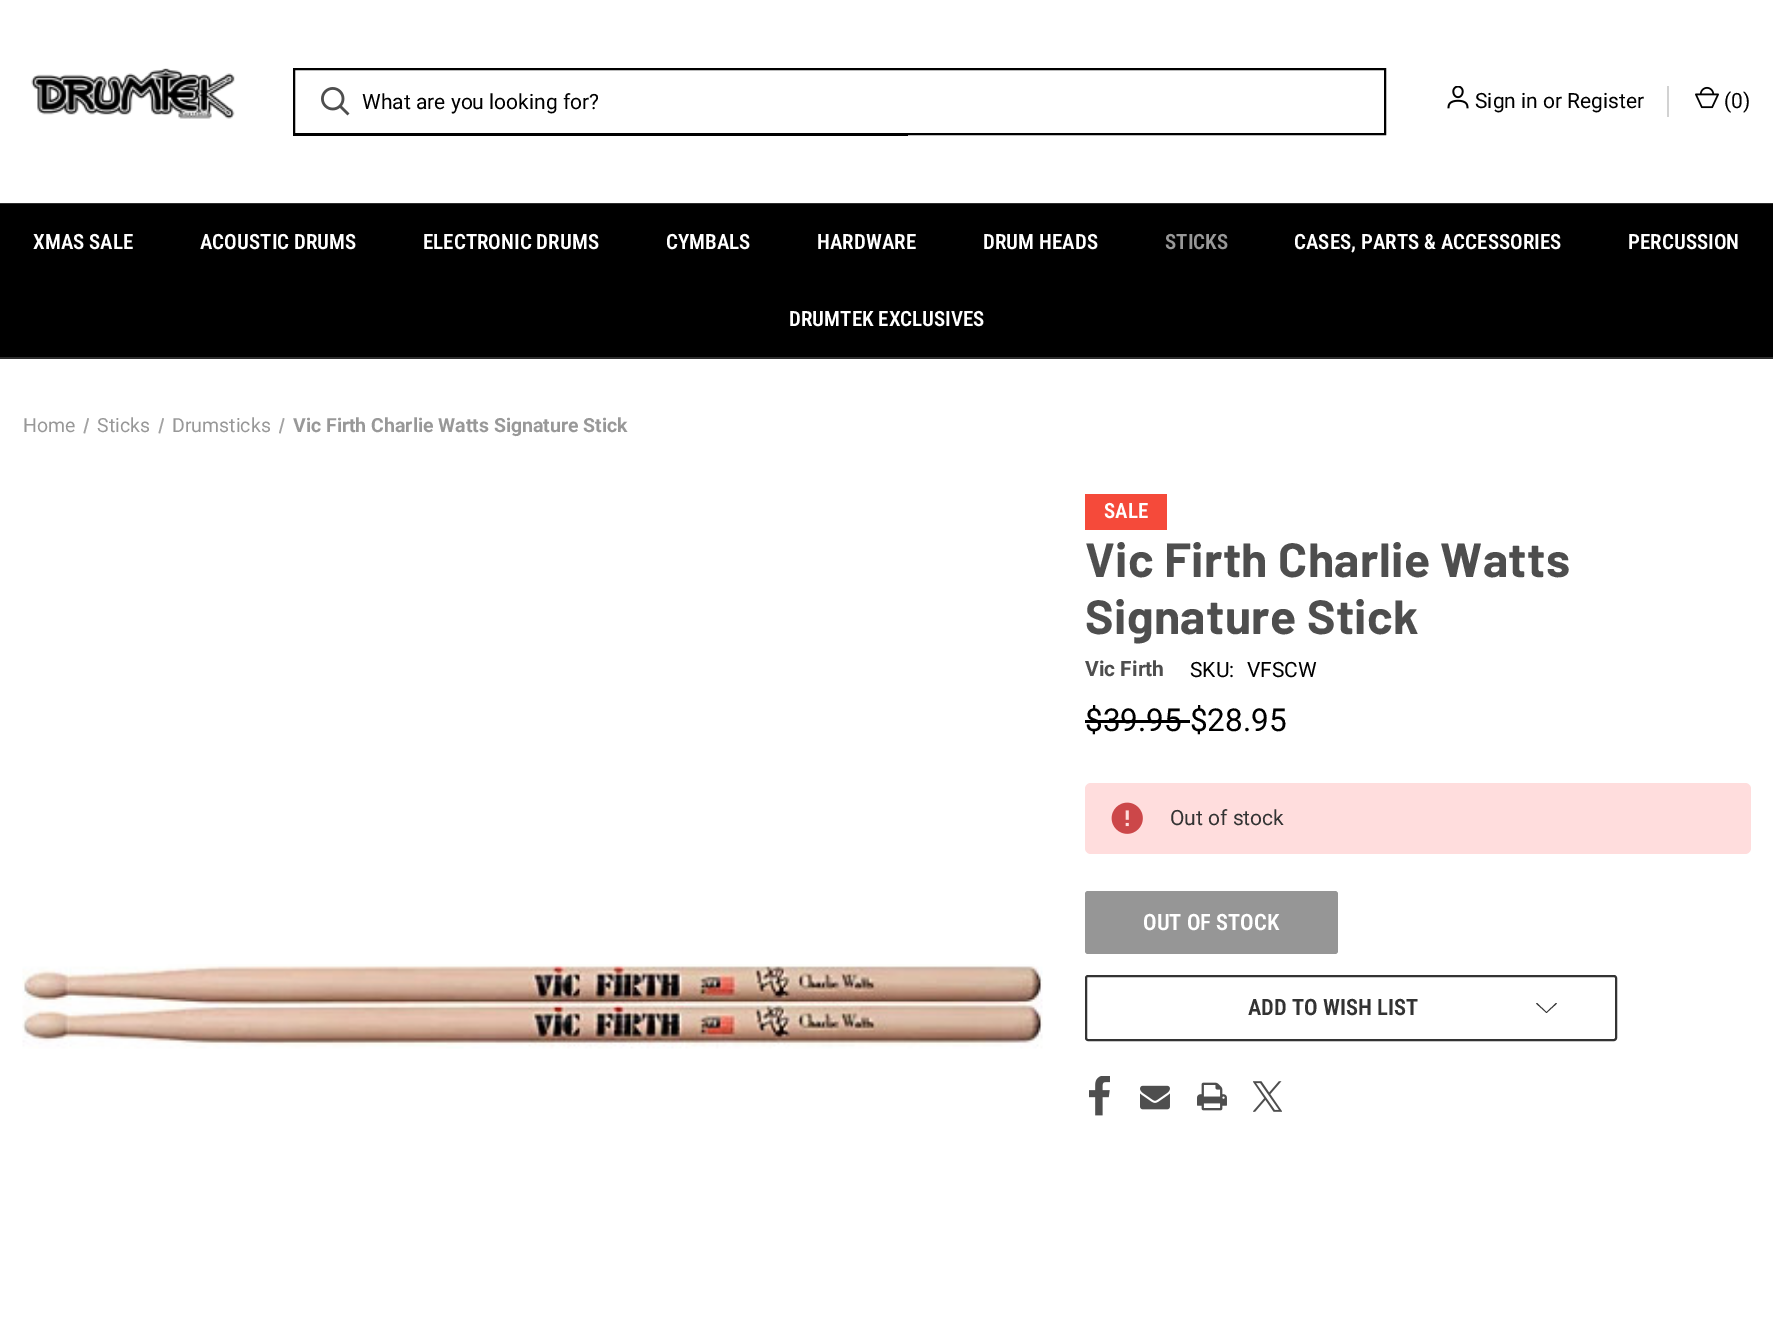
%!PS
<< /PageSize [1773 1317] >> setpagedevice
/m/moveto load def
/l/rlineto load def
/z/closepath load def
/f/fill load def
/s/stroke load def
/w/setlinewidth load def
/C { dup -16 bitshift 255 div exch dup -8 bitshift 255 and 255 div exch 255 and 255 div setrgbcolor } def
/F { [ exch dup neg 0 0 3 -1 roll 0 0 ] selectfont } def
/T { moveto show } def
/R { rectfill } def
/Q { 5 dict begin { /r /h /w /y /x } { exch def } forall
  x r add y moveto x w add y 2 copy h add r arct x w add y h add x 1 index r arct
  x y h add x y r arct x y 2 copy exch w add exch r arct closepath end } def
/I { 5 dict begin { /h /w /y /x /name } { exch def } forall
  gsave x y translate w h scale
  w h 8 [w 0 0 h 0 0] name (r) file false 3 colorimage grestore end } def
0 1317 translate 1 -1 scale
4 setmiterlimit
16#FFFFFF C
0 0 1773 1317 R
(1.rgb) 31 68 204 51 I
16#000000 C
2 w
294 69 1091 65 rectstroke
(2.rgb) 321 87 29 29 I
/Roboto-Regular 21 F
(What are you looking for?) 362 109 T
293 135 615 1 R
(3.rgb) 1447 86 22 23 I
(Sign in or Register) 1475 108 T
16#D2D2D2 C
1667 86 2 31 R
(4.rgb) 1695 86 24 23 I
16#000000 C
(\(0\)) 1724 108 T
16#2D2D2D C
0 203 1773 1 R
0 357 1773 2 R
16#000000 C
0 204 1773 153 R
/RobotoCondensed-SemiBold 21 F
16#FFFFFF C
(XMAS SALE) 33 249 T
(ACOUSTIC DRUMS) 200 249 T
(ELECTRONIC DRUMS) 423 249 T
(CYMBALS) 666 249 T
(HARDWARE) 817 249 T
(DRUM HEADS) 983 249 T
16#989898 C
(STICKS) 1165 249 T
16#FFFFFF C
(CASES, PARTS & ACCESSORIES) 1294 249 T
(PERCUSSION) 1628 249 T
(DRUMTEK EXCLUSIVES) 789 326 T
/Roboto-Regular 19.5 F
16#989898 C
(Home) 23 432 T
16#A3A3A3 C
87.5 418 m 1.5 .5 l -4 15 l -1.5 -.5 l z f
16#989898 C
(Sticks) 97 432 T
16#A3A3A3 C
162.5 418 m 1.5 .5 l -4 15 l -1.5 -.5 l z f
16#989898 C
(Drumsticks) 172 432 T
16#A3A3A3 C
283 418 m 1.5 .5 l -4 15 l -1.5 -.5 l z f
/Roboto-Bold 19.5 F
16#989898 C
(Vic Firth Charlie Watts Signature Stick) 293 432 T
(5.rgb) 22 964 1021 85 I
16#F54A3A C
1085 494 82 36 R
/RobotoCondensed-SemiBold 21 F
16#FFFFFF C
(SALE) 1104 518 T
/Barlow-Bold 48 F
16#4E4E4E C
1085 577 m .4 0 (Vic Firth Charlie Watts) ashow
1085 634 m .4 0 (Signature Stick) ashow
/Roboto-Bold 21 F
(Vic Firth) 1085 676 T
/Roboto-Regular 21 F
16#000000 C
(SKU:) 1190 677 T
(VFSCW) 1247 677 T
/Roboto-Regular 31.5 F
($39.95 $28.95) 1085 731 T
1085 720 105 3 R
16#FFDDDD C
1085 783 666 71 6 Q f
(6.rgb) 1111 802 32 32 I
/Roboto-Regular 21 F
16#333333 C
(Out of stock) 1170 825 T
16#969696 C
1085 891 253 63 3 Q f
/RobotoCondensed-SemiBold 22.5 F
16#FFFFFF C
(OUT OF STOCK) 1143 930 T
16#333333 C
1086 976 530 64 2 Q s
(ADD TO WISH LIST) 1248 1015 T
1546.5 1012 m 9.5 -9 l 1 .5 l -10.5 9.5 l -10.5 -9.5 l 1 -.5 l z eofill
(7.rgb) 1089 1076 21 40 I
(8.rgb) 1140 1085 30 25 I
(9.rgb) 1197 1082 30 29 I
(10.rgb) 1253 1081 29 31 I
showpage
